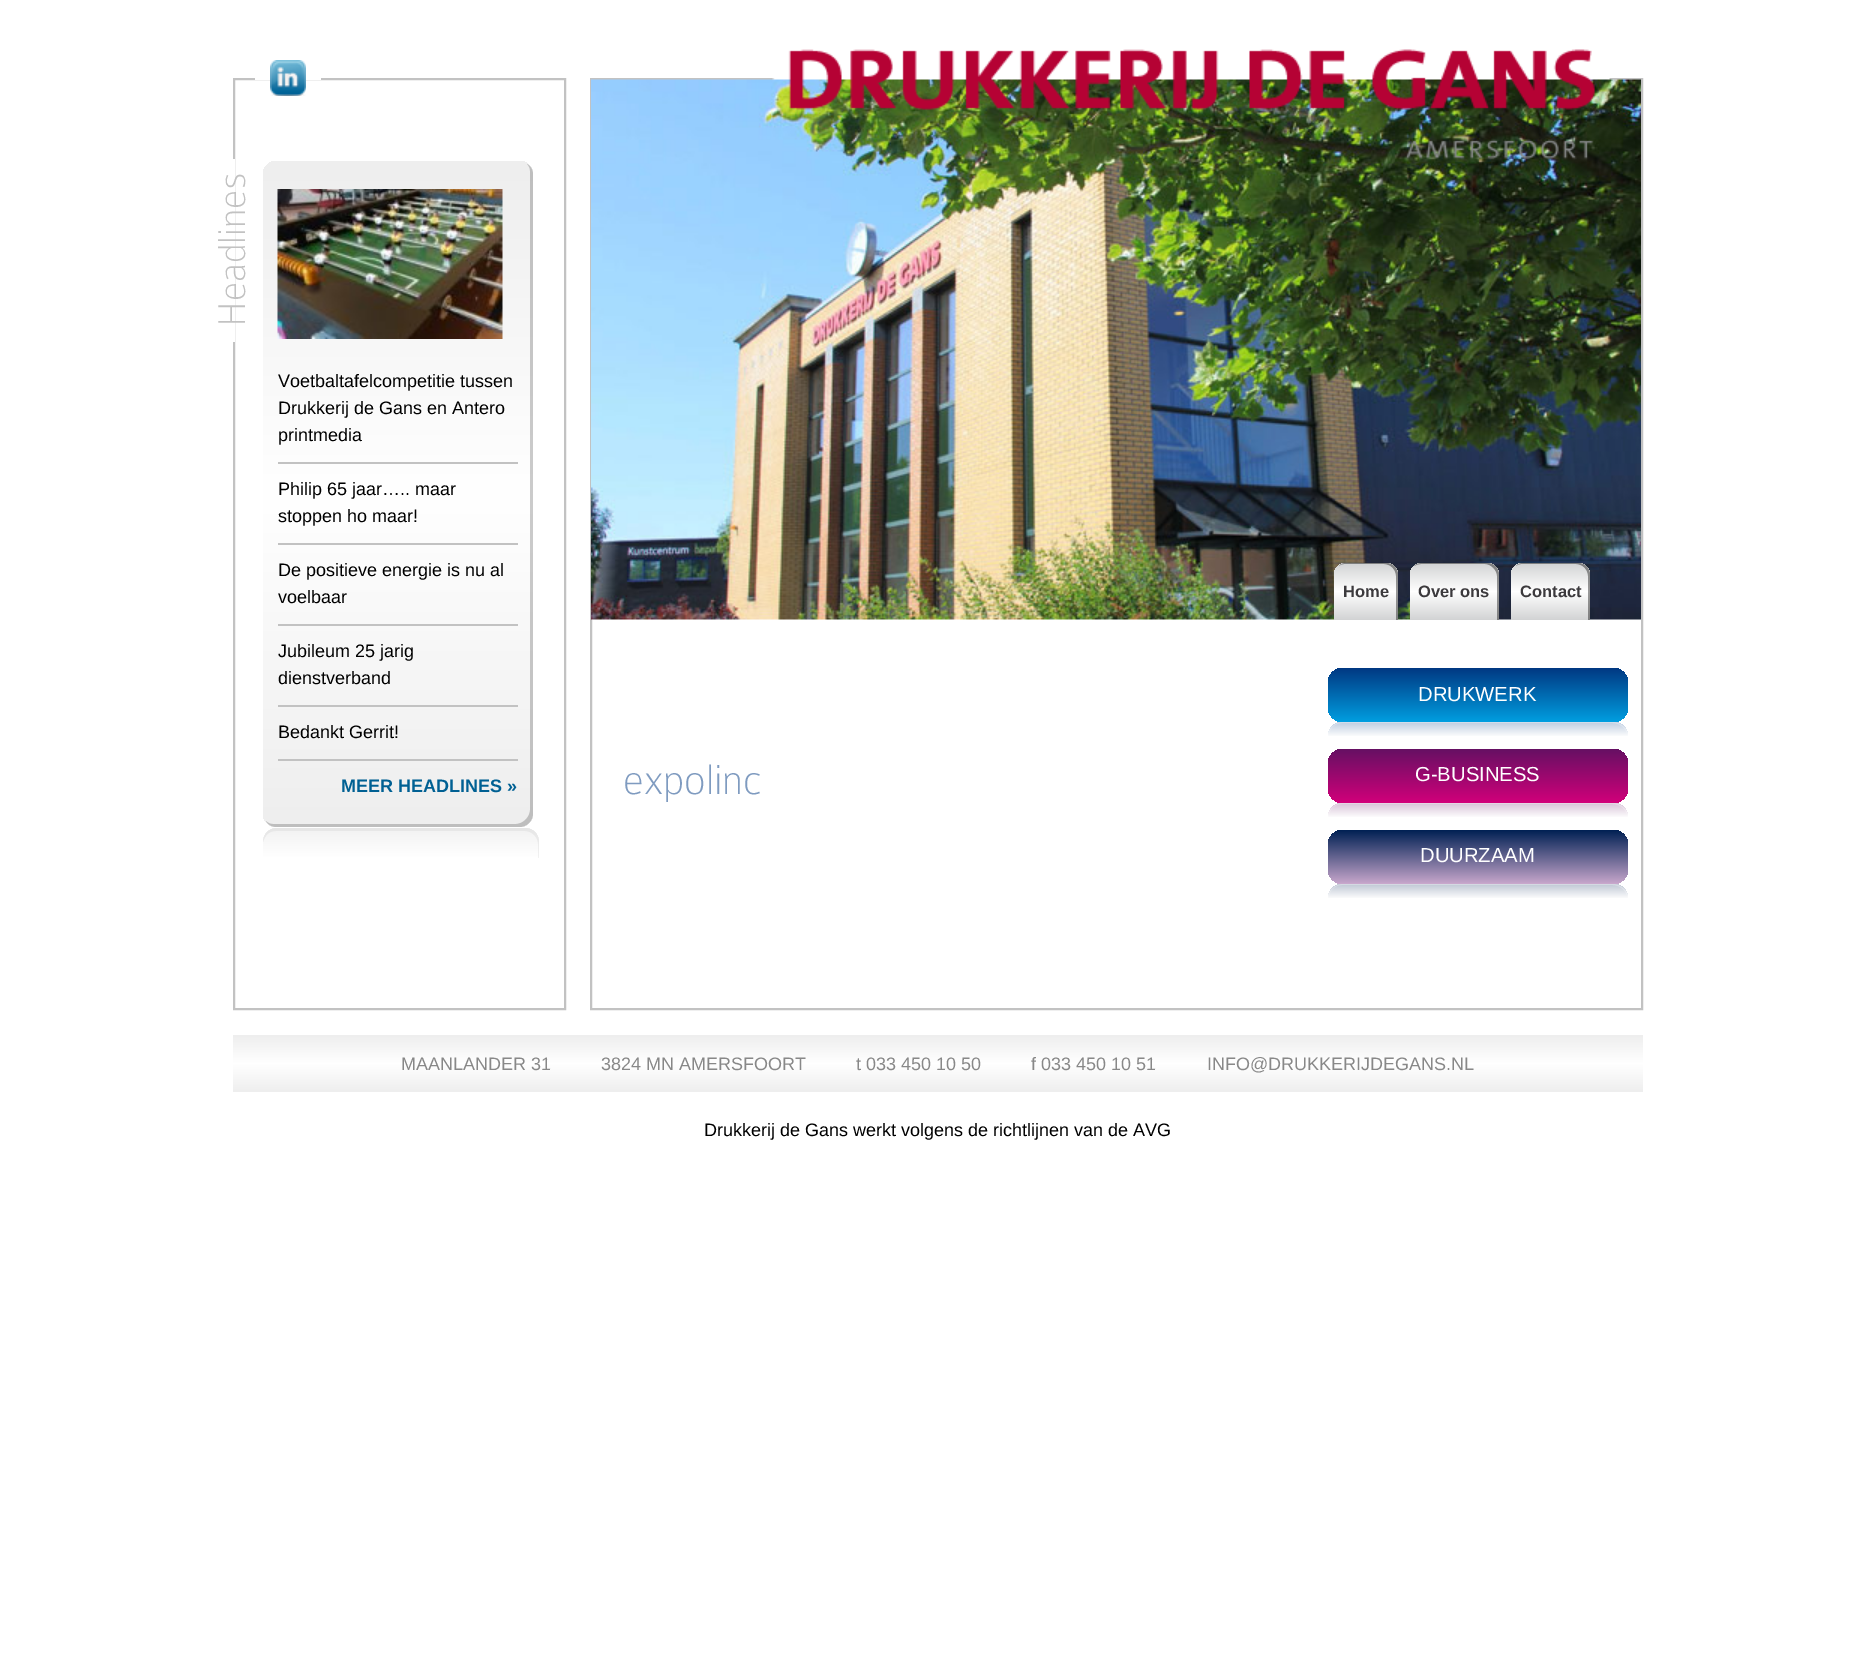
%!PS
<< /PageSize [1875 1670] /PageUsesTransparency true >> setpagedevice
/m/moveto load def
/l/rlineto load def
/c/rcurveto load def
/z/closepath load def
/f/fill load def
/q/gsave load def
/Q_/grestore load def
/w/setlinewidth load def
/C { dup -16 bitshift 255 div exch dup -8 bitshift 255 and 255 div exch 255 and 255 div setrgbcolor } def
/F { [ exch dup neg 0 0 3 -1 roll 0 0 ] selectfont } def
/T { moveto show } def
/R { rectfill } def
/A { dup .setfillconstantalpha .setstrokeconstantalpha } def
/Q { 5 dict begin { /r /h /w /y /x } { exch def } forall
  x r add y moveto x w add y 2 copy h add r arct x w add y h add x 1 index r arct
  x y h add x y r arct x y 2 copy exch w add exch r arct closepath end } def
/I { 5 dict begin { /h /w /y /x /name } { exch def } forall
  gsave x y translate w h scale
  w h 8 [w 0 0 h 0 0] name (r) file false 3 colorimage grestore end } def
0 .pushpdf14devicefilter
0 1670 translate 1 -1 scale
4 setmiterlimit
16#FFFFFF C
0 0 1875 1670 R
16#C2C2C2 C
2 w
234 79 331 930 rectstroke
16#FFFFFF C
255 78 66 2 R
(1.rgb) 270 60 36 36 I
16#C2C2C2 C
591 79 1051 930 rectstroke
16#FFFFFF C
233 159 2 183 R
q
218 0 1440 1010 rectclip
/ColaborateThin-Thin 41.5 F
16#C2C2C2 C
q 245 327 translate -90 rotate 0 0 m (Headlines) show Q_
Q_
q 263 161 270 666 14 Q clip newpath
<< /ShadingType 2 /ColorSpace /DeviceRGB /Coords [398 161 398 827] /Extend [true true] /Function << /FunctionType 3 /Domain [0 1] /Functions [<< /FunctionType 2 /Domain [0 1] /C0 [.933 .933 .933] /C1 [1 1 1] /N 1 >> << /FunctionType 2 /Domain [0 1] /C0 [1 1 1] /C1 [.933 .933 .933] /N 1 >>] /Bounds [.5] /Encode [0 1 0 1] >> >> shfill Q_
0.2 A
16#000000 C
266 821 m 2 4 6 6 11 6 c 242 0 l 8 0 14 -6 14 -14 c 0 -638 l 0 -5 -2 -9 -6 -11 c 2 2 3 4 3 7 c 0 639 l 0 7 -7 14 -14 14 c -243 0 l -3 0 -5 -1 -7 -3 c z f
1 A
(2.rgb) 277 189 226 150 I
/LiberationSans-Regular 18 F
(Voetbaltafelcompetitie tussen) 278 387 T
(Drukkerij de Gans en Antero) 278 414 T
(printmedia) 278 441 T
16#C2C2C2 C
278 462 240 2 R
16#000000 C
(Philip 65 jaar….. maar) 278 495 T
(stoppen ho maar!) 278 522 T
16#C2C2C2 C
278 543 240 2 R
16#000000 C
(De positieve energie is nu al) 278 576 T
(voelbaar) 278 603 T
16#C2C2C2 C
278 624 240 2 R
16#000000 C
(Jubileum 25 jarig) 278 657 T
(dienstverband) 278 684 T
16#C2C2C2 C
278 705 240 2 R
16#000000 C
(Bedankt Gerrit!) 278 738 T
16#C2C2C2 C
278 759 240 2 R
/LiberationSans-Bold 18 F
16#006093 C
(MEER HEADLINES ») 341 792 T
q 277 828 m 248 0 l 7.5 0 14 6.5 14 14 c 0 16 l -276 0 l 0 -16 l 0 -7.5 6.5 -14 14 -14 c z clip newpath
<< /ShadingType 2 /ColorSpace /DeviceRGB /Coords [401 828 401 858] /Extend [true true] /Function << /FunctionType 2 /Domain [0 1] /C0 [.949 .949 .949] /C1 [1 1 1] /N 1 >> >> shfill Q_
0.05 A
16#000000 C
276 831 m 249 0 l 7 0 13 6 13 13 c 0 14 l 1 0 l 0 -16 l 0 -8 -6 -14 -14 -14 c -248 0 l -8 0 -14 6 -14 14 c 2 -6 5 -11 13 -11 c z f
1 A
(3.rgb) 591 49 1050 571 I
/ColaborateThin-Thin 45 F
16#7F9BC0 C
(expolinc) 623 794 T
q 1346 563 m 40 0 l 6.5 0 12 5.5 12 12 c 0 45 l -64 0 l 0 -45 l 0 -6.5 5.5 -12 12 -12 c z clip newpath
<< /ShadingType 2 /ColorSpace /DeviceRGB /Coords [1366 563 1366 620] /Extend [true true] /Function << /FunctionType 3 /Domain [0 1] /Functions [<< /FunctionType 2 /Domain [0 1] /C0 [.824 .827 .831] /C1 [1 1 1] /N 1 >> << /FunctionType 2 /Domain [0 1] /C0 [1 1 1] /C1 [.824 .827 .831] /N 1 >>] /Bounds [.5] /Encode [0 1 0 1] >> >> shfill Q_
0.4 A
16#000000 C
1344 564 m 40 0 l 7 0 12 6 12 12 c 0 44 l 2 0 l 0 -45 l 0 -7 -5 -12 -12 -12 c -40 0 l -3 0 -5 1 -7 3 c 1 -1 3 -2 5 -2 c z f
/LiberationSans-Bold 16.5 F
1 A
16#3C3A3D C
(Home) 1343 597 T
q 1422 563 m 65 0 l 6.5 0 12 5.5 12 12 c 0 45 l -89 0 l 0 -45 l 0 -6.5 5.5 -12 12 -12 c z clip newpath
<< /ShadingType 2 /ColorSpace /DeviceRGB /Coords [1454 563 1454 620] /Extend [true true] /Function << /FunctionType 3 /Domain [0 1] /Functions [<< /FunctionType 2 /Domain [0 1] /C0 [.824 .827 .831] /C1 [1 1 1] /N 1 >> << /FunctionType 2 /Domain [0 1] /C0 [1 1 1] /C1 [.824 .827 .831] /N 1 >>] /Bounds [.5] /Encode [0 1 0 1] >> >> shfill Q_
0.4 A
16#000000 C
1421 564 m 64 0 l 6 0 12 6 12 12 c 0 44 l 2 0 l 0 -45 l 0 -7 -5 -12 -12 -12 c -65 0 l -3 0 -6 1 -8 3 c 2 -1 4 -2 7 -2 c z f
1 A
16#3C3A3D C
(Over ons) 1418 597 T
q 1523 563 m 55 0 l 6.5 0 12 5.5 12 12 c 0 45 l -79 0 l 0 -45 l 0 -6.5 5.5 -12 12 -12 c z clip newpath
<< /ShadingType 2 /ColorSpace /DeviceRGB /Coords [1550 563 1550 620] /Extend [true true] /Function << /FunctionType 3 /Domain [0 1] /Functions [<< /FunctionType 2 /Domain [0 1] /C0 [.824 .827 .831] /C1 [1 1 1] /N 1 >> << /FunctionType 2 /Domain [0 1] /C0 [1 1 1] /C1 [.824 .827 .831] /N 1 >>] /Bounds [.5] /Encode [0 1 0 1] >> >> shfill Q_
0.4 A
16#000000 C
1521 564 m 55 0 l 7 0 12 6 12 12 c 0 44 l 2 0 l 0 -45 l 0 -7 -5 -12 -12 -12 c -55 0 l -3 0 -5 1 -7 3 c 1 -1 3 -2 5 -2 c z f
1 A
16#3C3A3D C
(Contact) 1520 597 T
q 1328 668 300 54 15 Q clip newpath
<< /ShadingType 2 /ColorSpace /DeviceRGB /Coords [1478 668 1478 722] /Extend [true true] /Function << /FunctionType 2 /Domain [0 1] /C0 [0 .22 .51] /C1 [0 .62 .878] /N 1 >> >> shfill Q_
/LiberationSans-Regular 20.25 F
16#FFFFFF C
(DRUKWERK) 1418 701 T
q 1343 722 m 270 0 l 8.5 0 15 6.5 15 15 c -300 0 l 0 -8.5 6.5 -15 15 -15 c z clip newpath
<< /ShadingType 2 /ColorSpace /DeviceRGB /Coords [1478 722 1478 737] /Extend [true true] /Function << /FunctionType 2 /Domain [0 1] /C0 [.749 .804 .878] /C1 [1 1 1] /N 1 >> >> shfill Q_
0.3 A
1342 723 m 270 0 l 9 0 15 6 16 14 c 0 -8 -7 -15 -15 -15 c -270 0 l -8 0 -15 7 -15 15 c 1 -8 6 -14 14 -14 c z f
1 A
q 1328 749 300 54 15 Q clip newpath
<< /ShadingType 2 /ColorSpace /DeviceRGB /Coords [1478 749 1478 803] /Extend [true true] /Function << /FunctionType 2 /Domain [0 1] /C0 [.396 .063 .388] /C1 [.824 0 .478] /N 1 >> >> shfill Q_
(G-BUSINESS) 1415 781 T
q 1343 803 m 270 0 l 8.5 0 15 6.5 15 15 c -300 0 l 0 -8.5 6.5 -15 15 -15 c z clip newpath
<< /ShadingType 2 /ColorSpace /DeviceRGB /Coords [1478 803 1478 818] /Extend [true true] /Function << /FunctionType 2 /Domain [0 1] /C0 [.847 .765 .847] /C1 [1 1 1] /N 1 >> >> shfill Q_
0.3 A
1342 804 m 270 0 l 9 0 15 6 16 14 c 0 -8 -7 -15 -15 -15 c -270 0 l -8 0 -15 7 -15 15 c 1 -8 6 -14 14 -14 c z f
1 A
q 1328 830 300 54 15 Q clip newpath
<< /ShadingType 2 /ColorSpace /DeviceRGB /Coords [1478 830 1478 884] /Extend [true true] /Function << /FunctionType 2 /Domain [0 1] /C0 [0 .125 .325] /C1 [.784 .655 .8] /N 1 >> >> shfill Q_
(DUURZAAM) 1420 862 T
q 1343 884 m 270 0 l 8.5 0 15 6.5 15 15 c -300 0 l 0 -8.5 6.5 -15 15 -15 c z clip newpath
<< /ShadingType 2 /ColorSpace /DeviceRGB /Coords [1478 884 1478 899] /Extend [true true] /Function << /FunctionType 2 /Domain [0 1] /C0 [.749 .78 .831] /C1 [1 1 1] /N 1 >> >> shfill Q_
0.3 A
1342 885 m 270 0 l 9 0 15 6 16 14 c 0 -8 -7 -15 -15 -15 c -270 0 l -8 0 -15 7 -15 15 c 1 -8 6 -14 14 -14 c z f
1 A
q 233 1035 m 1410 0 l 0 57 l -1410 0 l z clip newpath
<< /ShadingType 2 /ColorSpace /DeviceRGB /Coords [938 1035 938 1092] /Extend [true true] /Function << /FunctionType 3 /Domain [0 1] /Functions [<< /FunctionType 2 /Domain [0 1] /C0 [.933 .933 .933] /C1 [1 1 1] /N 1 >> << /FunctionType 2 /Domain [0 1] /C0 [1 1 1] /C1 [.933 .933 .933] /N 1 >>] /Bounds [.5] /Encode [0 1 0 1] >> >> shfill Q_
/LiberationSans-Regular 18 F
16#888888 C
(MAANLANDER 31) 401 1070 T
(3824 MN AMERSFOORT) 601 1070 T
(t 033 450 10 50) 856 1070 T
(f 033 450 10 51) 1031 1070 T
(INFO@DRUKKERIJDEGANS.NL) 1207 1070 T
16#000000 C
(Drukkerij de Gans werkt volgens de richtlijnen van de AVG) 704 1136 T
.poppdf14devicefilter showpage
